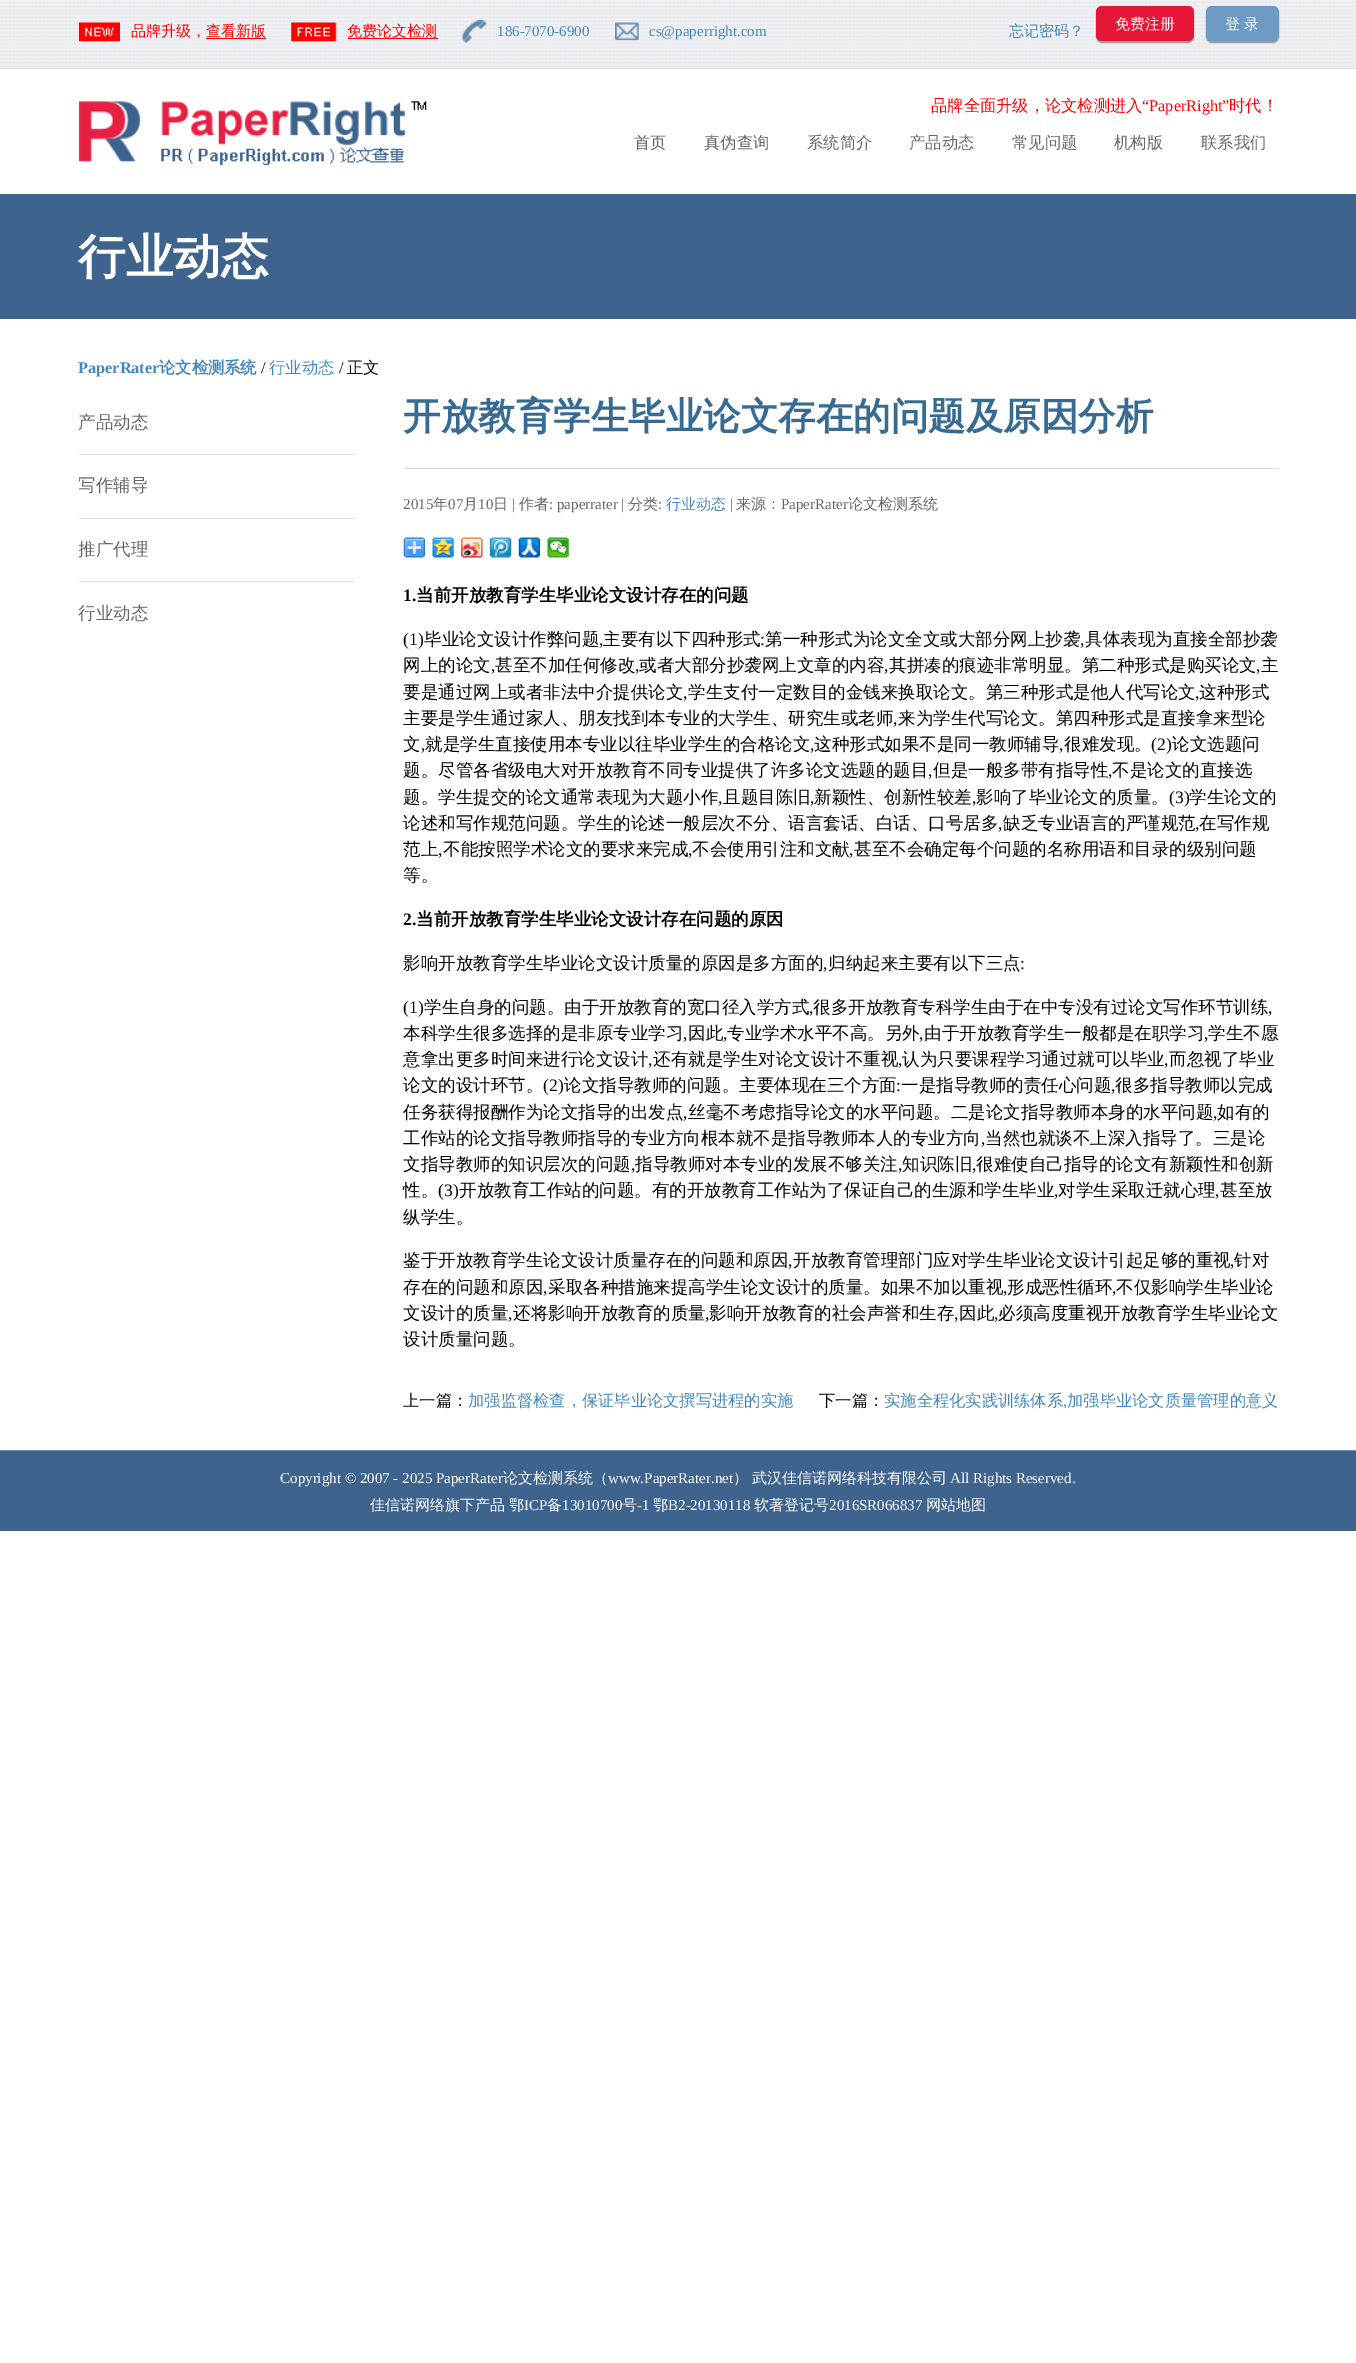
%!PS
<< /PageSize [1356 2363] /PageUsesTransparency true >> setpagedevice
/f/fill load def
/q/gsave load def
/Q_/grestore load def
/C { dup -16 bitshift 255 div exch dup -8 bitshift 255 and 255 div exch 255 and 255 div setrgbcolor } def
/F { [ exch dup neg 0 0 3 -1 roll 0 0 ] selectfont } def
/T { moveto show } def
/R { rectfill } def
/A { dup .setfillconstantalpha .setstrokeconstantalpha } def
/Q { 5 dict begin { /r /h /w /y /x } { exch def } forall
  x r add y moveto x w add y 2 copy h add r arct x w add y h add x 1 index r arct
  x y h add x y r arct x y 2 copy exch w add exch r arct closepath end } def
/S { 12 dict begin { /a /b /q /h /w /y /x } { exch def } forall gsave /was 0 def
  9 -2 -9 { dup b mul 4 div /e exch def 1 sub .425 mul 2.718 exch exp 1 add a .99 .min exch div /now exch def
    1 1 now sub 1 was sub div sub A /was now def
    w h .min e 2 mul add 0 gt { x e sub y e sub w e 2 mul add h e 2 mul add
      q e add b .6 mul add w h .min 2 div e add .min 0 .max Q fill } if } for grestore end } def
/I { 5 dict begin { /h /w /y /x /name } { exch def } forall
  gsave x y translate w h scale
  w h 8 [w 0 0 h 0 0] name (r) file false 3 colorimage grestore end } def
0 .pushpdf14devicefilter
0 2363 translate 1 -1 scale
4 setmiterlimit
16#FFFFFF C
0 0 1356 2363 R
(1.rgb) 0 0 1356 68 I
16#DFE0E2 C
0 68 1356 1 R
(2.rgb) 78 22 42 20 I
/WenQuanYiZenHei-Medium 15 F
16#FF0000 C
(品牌升级，查看新版) 131 36 T
206 38 60 1 R
(3.rgb) 291 22 46 20 I
(免费论文检测) 347 36 T
348 38 90 1 R
(4.rgb) 462 20 25 23 I
/LiberationSerif-Regular 15 F
16#4488BB C
(186-7070-6900) 497 36 T
(5.rgb) 615 22 24 19 I
(cs@paperright.com) 649 36 T
/WenQuanYiZenHei-Medium 15 F
(忘记密码？) 1009 36 T
16#999999 C
1096 8 98 35 6 .5 1 S
16#E51636 C
1096 6 98 35 6 Q f
16#FFFFFF C
(免费注册) 1115 29 T
16#999999 C
1206 8 73 35 6 .5 1 S
16#6D9AC2 C
1206 6 73 35 6 Q f
16#FFFFFF C
(登 录) 1225 29 T
(6.rgb) 78 101 349 65 I
/WenQuanYiZenHei-Medium 16.25 F
16#FF0000 C
(品牌全面升级，论文检测进入) 931 111 T
/LiberationSerif-Regular 16.25 F
(“PaperRight”) 1142 111 T
/WenQuanYiZenHei-Medium 16.25 F
(时代！) 1229 111 T
16#666666 C
(首页) 634 148 T
(真伪查询) 704 148 T
(系统简介) 807 148 T
(产品动态) 909 148 T
(常见问题) 1012 148 T
(机构版) 1114 148 T
(联系我们) 1201 148 T
16#3E638D C
0 194 1356 125 R
/WenQuanYiZenHei-Bold 47.5 F
16#FFFFFF C
(行业动态) 78 273 T
/LiberationSerif-Bold 16.25 F
16#4488BB C
(PaperRater) 78 373 T
/WenQuanYiZenHei-Bold 16.25 F
(论文检测系统) 159 373 T
/LiberationSerif-Regular 16.25 F
16#000000 C
(/) 261 373 T
/WenQuanYiZenHei-Medium 16.25 F
16#4488BB C
(行业动态) 269 373 T
/LiberationSerif-Regular 16.25 F
16#000000 C
(/) 339 373 T
/WenQuanYiZenHei-Medium 16.25 F
(正文) 347 373 T
/WenQuanYiZenHei-Medium 17.5 F
16#666666 C
(产品动态) 78 428 T
16#DDDDDD C
79 454 275 1 R
q
79 356 1200 1057 rectclip
16#666666 C
(写作辅导) 78 491 T
Q_
79 518 275 1 R
q
79 356 1200 1057 rectclip
16#666666 C
(推广代理) 78 555 T
Q_
79 581 275 1 R
16#666666 C
(行业动态) 78 619 T
/WenQuanYiZenHei-Bold 37.5 F
16#376B92 C
(开放教育学生毕业论文存在的问题及原因分析) 403 429 T
16#DDDDDD C
404 468 875 1 R
/LiberationSerif-Regular 15 F
16#666666 C
(2015) 403 509 T
/WenQuanYiZenHei-Medium 15 F
(年) 433 509 T
/LiberationSerif-Regular 15 F
(07) 448 509 T
/WenQuanYiZenHei-Medium 15 F
(月) 463 509 T
/LiberationSerif-Regular 15 F
(10) 478 509 T
/WenQuanYiZenHei-Medium 15 F
(日) 493 509 T
/LiberationSerif-Regular 15 F
(|) 512 509 T
/WenQuanYiZenHei-Medium 15 F
(作者) 519 509 T
/LiberationSerif-Regular 15 F
(: paperrater |) 549 509 T
/WenQuanYiZenHei-Medium 15 F
(分类) 628 509 T
/LiberationSerif-Regular 15 F
(:) 658 509 T
/WenQuanYiZenHei-Medium 15 F
16#4488BB C
(行业动态) 666 509 T
/LiberationSerif-Regular 15 F
16#666666 C
(|) 730 509 T
/WenQuanYiZenHei-Medium 15 F
(来源：) 736 509 T
/LiberationSerif-Regular 15 F
(PaperRater) 781 509 T
/WenQuanYiZenHei-Medium 15 F
(论文检测系统) 848 509 T
(7.rgb) 403 537 22 21 I
(8.rgb) 432 537 22 21 I
(9.rgb) 461 537 22 21 I
(10.rgb) 490 537 22 21 I
(11.rgb) 518 537 22 21 I
(12.rgb) 547 537 22 21 I
/LiberationSerif-Bold 17.5 F
16#000000 C
(1.) 403 601 T
/WenQuanYiZenHei-Bold 17.5 F
(当前开放教育学生毕业论文设计存在的问题) 416 601 T
/LiberationSerif-Regular 17.5 F
(\(1\)) 403 645 T
/WenQuanYiZenHei-Medium 17.5 F
(毕业论文设计作弊问题) 424 645 T
/LiberationSerif-Regular 17.5 F
(,) 599 645 T
/WenQuanYiZenHei-Medium 17.5 F
(主要有以下四种形式) 603 645 T
/LiberationSerif-Regular 17.5 F
(:) 760 645 T
/WenQuanYiZenHei-Medium 17.5 F
(第一种形式为论文全文或大部分网上抄袭) 765 645 T
/LiberationSerif-Regular 17.5 F
(,) 1080 645 T
/WenQuanYiZenHei-Medium 17.5 F
(具体表现为直接全部抄袭) 1085 645 T
(网上的论文) 403 671 T
/LiberationSerif-Regular 17.5 F
(,) 491 671 T
/WenQuanYiZenHei-Medium 17.5 F
(甚至不加任何修改) 495 671 T
/LiberationSerif-Regular 17.5 F
(,) 635 671 T
/WenQuanYiZenHei-Medium 17.5 F
(或者大部分抄袭网上文章的内容) 639 671 T
/LiberationSerif-Regular 17.5 F
(,) 884 671 T
/WenQuanYiZenHei-Medium 17.5 F
(其拼凑的痕迹非常明显。第二种形式是购买论文) 889 671 T
/LiberationSerif-Regular 17.5 F
(,) 1256 671 T
/WenQuanYiZenHei-Medium 17.5 F
(主) 1261 671 T
(要是通过网上或者非法中介提供论文) 403 698 T
/LiberationSerif-Regular 17.5 F
(,) 683 698 T
/WenQuanYiZenHei-Medium 17.5 F
(学生支付一定数目的金钱来换取论文。第三种形式是他人代写论文) 688 698 T
/LiberationSerif-Regular 17.5 F
(,) 1195 698 T
/WenQuanYiZenHei-Medium 17.5 F
(这种形式) 1199 698 T
(主要是学生通过家人、朋友找到本专业的大学生、研究生或老师) 403 724 T
/LiberationSerif-Regular 17.5 F
(,) 893 724 T
/WenQuanYiZenHei-Medium 17.5 F
(来为学生代写论文。第四种形式是直接拿来型论) 898 724 T
(文) 403 750 T
/LiberationSerif-Regular 17.5 F
(,) 421 750 T
/WenQuanYiZenHei-Medium 17.5 F
(就是学生直接使用本专业以往毕业学生的合格论文) 425 750 T
/LiberationSerif-Regular 17.5 F
(,) 810 750 T
/WenQuanYiZenHei-Medium 17.5 F
(这种形式如果不是同一教师辅导) 814 750 T
/LiberationSerif-Regular 17.5 F
(,) 1059 750 T
/WenQuanYiZenHei-Medium 17.5 F
(很难发现。) 1064 750 T
/LiberationSerif-Regular 17.5 F
(\(2\)) 1151 750 T
/WenQuanYiZenHei-Medium 17.5 F
(论文选题问) 1172 750 T
(题。尽管各省级电大对开放教育不同专业提供了许多论文选题的题目) 403 776 T
/LiberationSerif-Regular 17.5 F
(,) 928 776 T
/WenQuanYiZenHei-Medium 17.5 F
(但是一般多带有指导性) 933 776 T
/LiberationSerif-Regular 17.5 F
(,) 1108 776 T
/WenQuanYiZenHei-Medium 17.5 F
(不是论文的直接选) 1112 776 T
(题。学生提交的论文通常表现为大题小作) 403 803 T
/LiberationSerif-Regular 17.5 F
(,) 718 803 T
/WenQuanYiZenHei-Medium 17.5 F
(且题目陈旧) 723 803 T
/LiberationSerif-Regular 17.5 F
(,) 810 803 T
/WenQuanYiZenHei-Medium 17.5 F
(新颖性、创新性较差) 814 803 T
/LiberationSerif-Regular 17.5 F
(,) 972 803 T
/WenQuanYiZenHei-Medium 17.5 F
(影响了毕业论文的质量。) 976 803 T
/LiberationSerif-Regular 17.5 F
(\(3\)) 1169 803 T
/WenQuanYiZenHei-Medium 17.5 F
(学生论文的) 1189 803 T
(论述和写作规范问题。学生的论述一般层次不分、语言套话、白话、口号居多) 403 829 T
/LiberationSerif-Regular 17.5 F
(,) 998 829 T
/WenQuanYiZenHei-Medium 17.5 F
(缺乏专业语言的严谨规范) 1003 829 T
/LiberationSerif-Regular 17.5 F
(,) 1195 829 T
/WenQuanYiZenHei-Medium 17.5 F
(在写作规) 1199 829 T
(范上) 403 855 T
/LiberationSerif-Regular 17.5 F
(,) 438 855 T
/WenQuanYiZenHei-Medium 17.5 F
(不能按照学术论文的要求来完成) 443 855 T
/LiberationSerif-Regular 17.5 F
(,) 688 855 T
/WenQuanYiZenHei-Medium 17.5 F
(不会使用引注和文献) 692 855 T
/LiberationSerif-Regular 17.5 F
(,) 849 855 T
/WenQuanYiZenHei-Medium 17.5 F
(甚至不会确定每个问题的名称用语和目录的级别问题) 854 855 T
(等。) 403 881 T
/LiberationSerif-Bold 17.5 F
(2.) 403 925 T
/WenQuanYiZenHei-Bold 17.5 F
(当前开放教育学生毕业论文设计存在问题的原因) 416 925 T
/WenQuanYiZenHei-Medium 17.5 F
(影响开放教育学生毕业论文设计质量的原因是多方面的) 403 969 T
/LiberationSerif-Regular 17.5 F
(,) 823 969 T
/WenQuanYiZenHei-Medium 17.5 F
(归纳起来主要有以下三点) 828 969 T
/LiberationSerif-Regular 17.5 F
(:) 1020 969 T
(\(1\)) 403 1013 T
/WenQuanYiZenHei-Medium 17.5 F
(学生自身的问题。由于开放教育的宽口径入学方式) 424 1013 T
/LiberationSerif-Regular 17.5 F
(,) 809 1013 T
/WenQuanYiZenHei-Medium 17.5 F
(很多开放教育专科学生由于在中专没有过论文写作环节训练) 813 1013 T
/LiberationSerif-Regular 17.5 F
(,) 1268 1013 T
/WenQuanYiZenHei-Medium 17.5 F
(本科学生很多选择的是非原专业学习) 403 1039 T
/LiberationSerif-Regular 17.5 F
(,) 683 1039 T
/WenQuanYiZenHei-Medium 17.5 F
(因此) 688 1039 T
/LiberationSerif-Regular 17.5 F
(,) 723 1039 T
/WenQuanYiZenHei-Medium 17.5 F
(专业学术水平不高。另外) 727 1039 T
/LiberationSerif-Regular 17.5 F
(,) 919 1039 T
/WenQuanYiZenHei-Medium 17.5 F
(由于开放教育学生一般都是在职学习) 924 1039 T
/LiberationSerif-Regular 17.5 F
(,) 1204 1039 T
/WenQuanYiZenHei-Medium 17.5 F
(学生不愿) 1208 1039 T
(意拿出更多时间来进行论文设计) 403 1065 T
/LiberationSerif-Regular 17.5 F
(,) 648 1065 T
/WenQuanYiZenHei-Medium 17.5 F
(还有就是学生对论文设计不重视) 653 1065 T
/LiberationSerif-Regular 17.5 F
(,) 898 1065 T
/WenQuanYiZenHei-Medium 17.5 F
(认为只要课程学习通过就可以毕业) 902 1065 T
/LiberationSerif-Regular 17.5 F
(,) 1164 1065 T
/WenQuanYiZenHei-Medium 17.5 F
(而忽视了毕业) 1169 1065 T
(论文的设计环节。) 403 1091 T
/LiberationSerif-Regular 17.5 F
(\(2\)) 543 1091 T
/WenQuanYiZenHei-Medium 17.5 F
(论文指导教师的问题。主要体现在三个方面) 564 1091 T
/LiberationSerif-Regular 17.5 F
(:) 896 1091 T
/WenQuanYiZenHei-Medium 17.5 F
(一是指导教师的责任心问题) 901 1091 T
/LiberationSerif-Regular 17.5 F
(,) 1111 1091 T
/WenQuanYiZenHei-Medium 17.5 F
(很多指导教师以完成) 1115 1091 T
(任务获得报酬作为论文指导的出发点) 403 1118 T
/LiberationSerif-Regular 17.5 F
(,) 683 1118 T
/WenQuanYiZenHei-Medium 17.5 F
(丝毫不考虑指导论文的水平问题。二是论文指导教师本身的水平问题) 688 1118 T
/LiberationSerif-Regular 17.5 F
(,) 1213 1118 T
/WenQuanYiZenHei-Medium 17.5 F
(如有的) 1217 1118 T
(工作站的论文指导教师指导的专业方向根本就不是指导教师本人的专业方向) 403 1144 T
/LiberationSerif-Regular 17.5 F
(,) 981 1144 T
/WenQuanYiZenHei-Medium 17.5 F
(当然也就谈不上深入指导了。三是论) 985 1144 T
(文指导教师的知识层次的问题) 403 1170 T
/LiberationSerif-Regular 17.5 F
(,) 631 1170 T
/WenQuanYiZenHei-Medium 17.5 F
(指导教师对本专业的发展不够关注) 635 1170 T
/LiberationSerif-Regular 17.5 F
(,) 898 1170 T
/WenQuanYiZenHei-Medium 17.5 F
(知识陈旧) 902 1170 T
/LiberationSerif-Regular 17.5 F
(,) 972 1170 T
/WenQuanYiZenHei-Medium 17.5 F
(很难使自己指导的论文有新颖性和创新) 976 1170 T
(性。) 403 1196 T
/LiberationSerif-Regular 17.5 F
(\(3\)) 438 1196 T
/WenQuanYiZenHei-Medium 17.5 F
(开放教育工作站的问题。有的开放教育工作站为了保证自己的生源和学生毕业) 459 1196 T
/LiberationSerif-Regular 17.5 F
(,) 1054 1196 T
/WenQuanYiZenHei-Medium 17.5 F
(对学生采取迁就心理) 1058 1196 T
/LiberationSerif-Regular 17.5 F
(,) 1215 1196 T
/WenQuanYiZenHei-Medium 17.5 F
(甚至放) 1220 1196 T
(纵学生。) 403 1223 T
(鉴于开放教育学生论文设计质量存在的问题和原因) 403 1266 T
/LiberationSerif-Regular 17.5 F
(,) 788 1266 T
/WenQuanYiZenHei-Medium 17.5 F
(开放教育管理部门应对学生毕业论文设计引起足够的重视) 793 1266 T
/LiberationSerif-Regular 17.5 F
(,) 1230 1266 T
/WenQuanYiZenHei-Medium 17.5 F
(针对) 1234 1266 T
(存在的问题和原因) 403 1293 T
/LiberationSerif-Regular 17.5 F
(,) 543 1293 T
/WenQuanYiZenHei-Medium 17.5 F
(采取各种措施来提高学生论文设计的质量。如果不加以重视) 548 1293 T
/LiberationSerif-Regular 17.5 F
(,) 1003 1293 T
/WenQuanYiZenHei-Medium 17.5 F
(形成恶性循环) 1007 1293 T
/LiberationSerif-Regular 17.5 F
(,) 1112 1293 T
/WenQuanYiZenHei-Medium 17.5 F
(不仅影响学生毕业论) 1116 1293 T
(文设计的质量) 403 1319 T
/LiberationSerif-Regular 17.5 F
(,) 508 1319 T
/WenQuanYiZenHei-Medium 17.5 F
(还将影响开放教育的质量) 513 1319 T
/LiberationSerif-Regular 17.5 F
(,) 705 1319 T
/WenQuanYiZenHei-Medium 17.5 F
(影响开放教育的社会声誉和生存) 709 1319 T
/LiberationSerif-Regular 17.5 F
(,) 954 1319 T
/WenQuanYiZenHei-Medium 17.5 F
(因此) 959 1319 T
/LiberationSerif-Regular 17.5 F
(,) 994 1319 T
/WenQuanYiZenHei-Medium 17.5 F
(必须高度重视开放教育学生毕业论文) 998 1319 T
(设计质量问题。) 403 1345 T
/WenQuanYiZenHei-Medium 16.25 F
(上一篇：) 403 1406 T
16#4488BB C
(加强监督检查，保证毕业论文撰写进程的实施) 468 1406 T
16#000000 C
(下一篇：) 819 1406 T
16#4488BB C
(实施全程化实践训练体系) 884 1406 T
/LiberationSerif-Regular 16.25 F
(,) 1063 1406 T
/WenQuanYiZenHei-Medium 16.25 F
(加强毕业论文质量管理的意义) 1067 1406 T
16#3E638D C
0 1451 1356 80 R
16#6C92B3 C
0 1450 1356 1 R
/LiberationSerif-Regular 15 F
16#FFFFFF C
(Copyright © 2007 - 2025 PaperRater) 280 1483 T
/WenQuanYiZenHei-Medium 15 F
(论文检测系统（) 503 1483 T
/LiberationSerif-Regular 15 F
(www.PaperRater.net) 608 1483 T
/WenQuanYiZenHei-Medium 15 F
(）) 733 1483 T
(武汉佳信诺网络科技有限公司) 752 1483 T
/LiberationSerif-Regular 15 F
(All Rights Reserved.) 950 1483 T
/WenQuanYiZenHei-Medium 15 F
(佳信诺网络旗下产品) 370 1510 T
(鄂) 509 1510 T
/LiberationSerif-Regular 15 F
(ICP) 524 1510 T
/WenQuanYiZenHei-Medium 15 F
(备) 547 1510 T
/LiberationSerif-Regular 15 F
(13010700) 562 1510 T
/WenQuanYiZenHei-Medium 15 F
(号) 622 1510 T
/LiberationSerif-Regular 15 F
(-1) 637 1510 T
/WenQuanYiZenHei-Medium 15 F
(鄂) 653 1510 T
/LiberationSerif-Regular 15 F
(B2-20130118) 668 1510 T
/WenQuanYiZenHei-Medium 15 F
(软著登记号) 754 1510 T
/LiberationSerif-Regular 15 F
(2016SR066837) 829 1510 T
/WenQuanYiZenHei-Medium 15 F
(网站地图) 926 1510 T
.poppdf14devicefilter showpage
